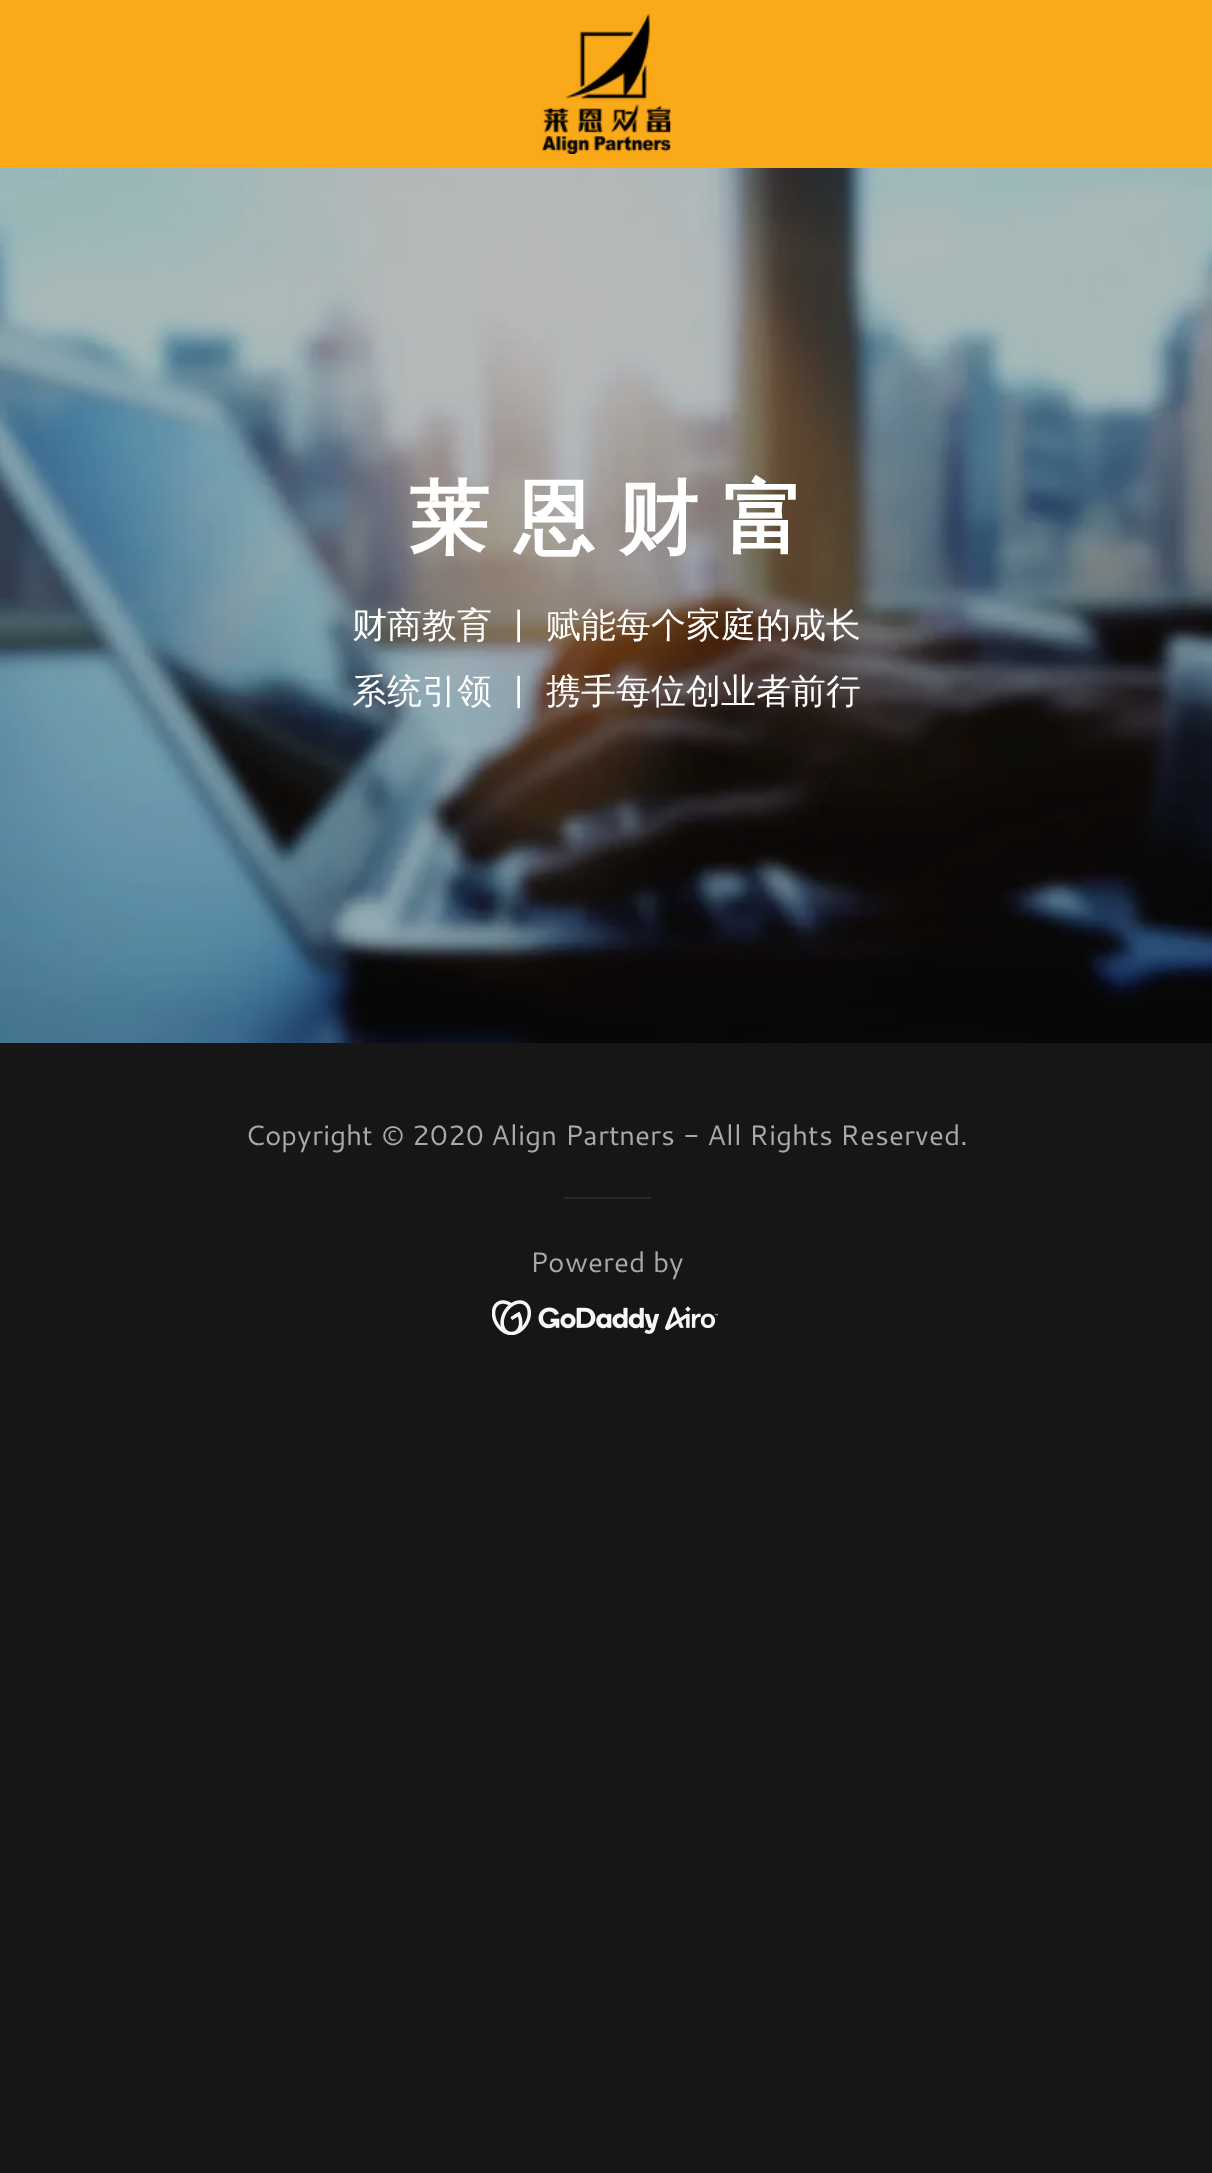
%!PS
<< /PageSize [1212 2173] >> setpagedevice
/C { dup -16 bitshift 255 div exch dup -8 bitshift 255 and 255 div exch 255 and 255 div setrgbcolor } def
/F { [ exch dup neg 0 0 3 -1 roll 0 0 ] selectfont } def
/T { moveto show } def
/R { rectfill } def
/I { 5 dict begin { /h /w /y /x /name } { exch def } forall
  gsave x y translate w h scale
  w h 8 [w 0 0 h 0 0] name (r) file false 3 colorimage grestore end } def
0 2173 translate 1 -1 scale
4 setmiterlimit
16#161616 C
0 0 1212 2173 R
16#FAA919 C
0 0 1212 168 R
(1.rgb) 542 14 129 140 I
(2.rgb) 0 168 1212 875 I
/WenQuanYiZenHei-Bold 80.5 F
16#FFFFFF C
(莱 恩 财 富) 409 546 T
/WenQuanYiZenHei-Medium 35 F
(财商教育) 352 637 T
/Cantarell-Regular 35 F
(|) 511 637 T
/WenQuanYiZenHei-Medium 35 F
(赋能每个家庭的成长) 546 637 T
(系统引领) 352 703 T
/Cantarell-Regular 35 F
(|) 511 703 T
/WenQuanYiZenHei-Medium 35 F
(携手每位创业者前行) 546 703 T
/Cantarell-Regular 28 F
16#A9A9A9 C
(Copyright © 2020 Align Partners - All Rights Reserved.) 245 1145 T
16#2A2A2A C
564 1197 87 2 R
16#A9A9A9 C
(Powered by) 530 1272 T
(3.rgb) 492 1300 227 35 I
showpage
